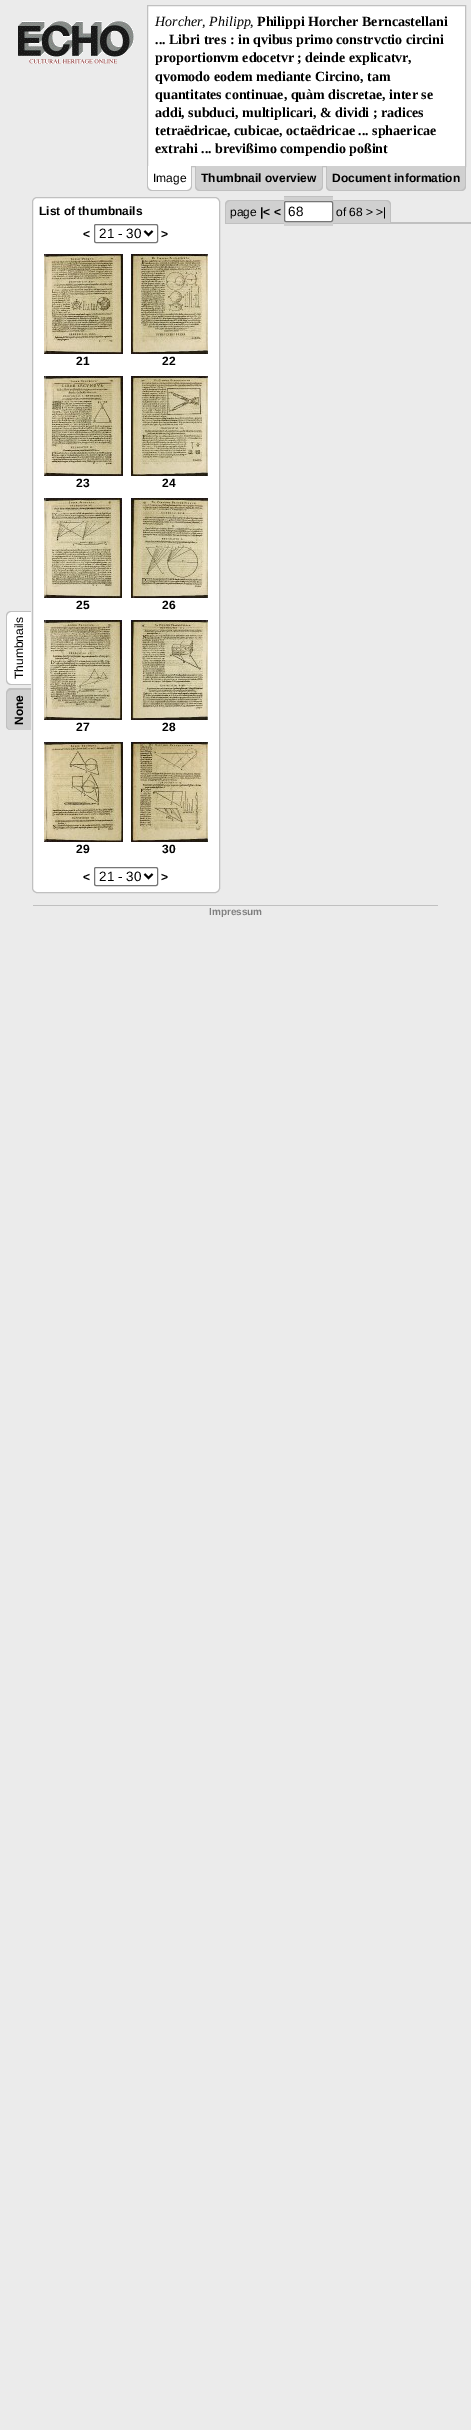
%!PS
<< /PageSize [471 2430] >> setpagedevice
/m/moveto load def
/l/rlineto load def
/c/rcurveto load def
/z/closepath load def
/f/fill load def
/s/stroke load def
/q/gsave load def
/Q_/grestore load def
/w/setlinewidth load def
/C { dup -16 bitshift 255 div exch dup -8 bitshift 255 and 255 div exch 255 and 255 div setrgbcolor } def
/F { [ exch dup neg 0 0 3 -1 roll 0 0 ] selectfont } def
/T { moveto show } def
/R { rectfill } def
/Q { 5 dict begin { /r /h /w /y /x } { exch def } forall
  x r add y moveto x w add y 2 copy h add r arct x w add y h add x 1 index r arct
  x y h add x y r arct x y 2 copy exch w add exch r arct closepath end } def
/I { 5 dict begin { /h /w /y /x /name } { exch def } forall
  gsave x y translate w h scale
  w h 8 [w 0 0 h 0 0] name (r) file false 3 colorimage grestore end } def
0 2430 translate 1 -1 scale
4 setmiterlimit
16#EBEBEB C
0 0 471 2430 R
(1.rgb) 18 21 116 43 I
16#FFFFFF C
147.5 5.5 m 318 0 l 0 161 l -318 0 l z q f Q_
16#C0C0C0 C
s
/LiberationSerif-Italic 14 F
16#000000 C
(Horcher, Philipp) 155 26 T
/LiberationSerif-Regular 14 F
(,) 250 26 T
/LiberationSerif-Bold 14 F
(Philippi Horcher Berncastellani) 257 26 T
(... Libri tres : in qvibus primo constrvctio circini) 155 44 T
(proportionvm edocetvr ; deinde explicatvr,) 155 62 T
(qvomodo eodem mediante Circino, tam) 155 81 T
(quantitates continuae, quàm discretae, inter se) 155 99 T
(addi, subduci, multiplicari, & dividi ; radices) 155 117 T
(tetraëdricae, cubicae, octaëdricae ... sphaericae) 155 135 T
(extrahi ... brevißimo compendio poßint) 155 153 T
16#FFFFFF C
147 166 m 45 0 l 0 20 l 0 3 -2 5 -5 5 c -35 0 l -3 0 -5 -2 -5 -5 c z f
16#C0C0C0 C
147 166 m 45 0 l 0 20 l 0 3 -2 5 -5 5 c -35 0 l -3 0 -5 -2 -5 -5 c z 148 166 m 43 0 l 0 20 l 0 2 -2 4 -4 4 c -35 0 l -2 0 -4 -2 -4 -4 c z eofill
/LiberationSans-Regular 12 F
16#000000 C
(Image) 153 182 T
16#D0D0D0 C
195 166 m 128 0 l 0 20 l 0 3 -2 5 -5 5 c -118 0 l -3 0 -5 -2 -5 -5 c z f
16#C0C0C0 C
195 166 m 128 0 l 0 20 l 0 3 -2 5 -5 5 c -118 0 l -3 0 -5 -2 -5 -5 c z 196 166 m 126 0 l 0 20 l 0 2 -2 4 -4 4 c -118 0 l -2 0 -4 -2 -4 -4 c z eofill
/LiberationSans-Bold 12 F
16#000000 C
(Thumbnail overview) 201 182 T
16#D0D0D0 C
326 166 m 140 0 l 0 20 l 0 3 -2 5 -5 5 c -130 0 l -3 0 -5 -2 -5 -5 c z f
16#C0C0C0 C
326 166 m 140 0 l 0 20 l 0 3 -2 5 -5 5 c -130 0 l -3 0 -5 -2 -5 -5 c z 327 166 m 138 0 l 0 20 l 0 2 -2 4 -4 4 c -130 0 l -2 0 -4 -2 -4 -4 c z eofill
16#000000 C
(Document information) 332 182 T
16#FFFFFF C
6 680 m 0 -64 l 0 -3 2 -5 5 -5 c 20 0 l 0 74 l -20 0 l -3 0 -5 -2 -5 -5 c z f
16#C0C0C0 C
6 680 m 0 -64 l 0 -3 2 -5 5 -5 c 20 0 l 0 74 l -20 0 l -3 0 -5 -2 -5 -5 c z 7 680 m 0 -64 l 0 -2 2 -4 4 -4 c 20 0 l 0 72 l -20 0 l -2 0 -4 -2 -4 -4 c z eofill
/LiberationSans-Regular 12 F
16#000000 C
q 23 679 translate -90 rotate 0 0 m (Thumbnails) show Q_
16#D0D0D0 C
6 726 m 0 -32 l 0 -3 2 -6 5 -6 c 20 0 l 0 42 l -20 0 l -3 0 -5 -2 -5 -4 c z f
16#C0C0C0 C
6 726 m 0 -32 l 0 -3 2 -6 5 -6 c 20 0 l 0 42 l -20 0 l -3 0 -5 -2 -5 -4 c z 7 726 m 0 -32 l 0 -3 2 -4 4 -4 c 20 0 l 0 40 l -20 0 l -2 0 -4 -2 -4 -4 c z eofill
/LiberationSans-Bold 12 F
16#000000 C
q 23 725 translate -90 rotate 0 0 m (None) show Q_
16#FFFFFF C
32.5 197.5 187 695 4.5 Q q f Q_
16#C0C0C0 C
s
16#000000 C
(List of thumbnails) 39 215 T
(<) 83 238 T
16#767676 C
94.5 224.5 63 18 1.5 Q s
16#000000 C
2 w
144.5 231 m 4 4 l 4 -4 l s
/LiberationSans-Regular 13.5 F
(21 - 30) 99 238 T
/LiberationSans-Bold 12 F
(>) 161 238 T
(2.rgb) 44 254 79 100 I
(21) 76 365 T
(3.rgb) 131 254 77 100 I
(22) 162 365 T
(4.rgb) 44 376 79 100 I
(23) 76 487 T
(5.rgb) 131 376 77 100 I
(24) 162 487 T
(6.rgb) 44 498 78 100 I
(25) 76 609 T
(7.rgb) 131 498 77 100 I
(26) 162 609 T
(8.rgb) 44 620 78 100 I
(27) 76 731 T
(9.rgb) 131 620 77 100 I
(28) 162 731 T
(10.rgb) 44 742 79 100 I
(29) 76 853 T
(11.rgb) 131 742 77 100 I
(30) 162 853 T
(<) 83 881 T
16#767676 C
1 w
94.5 867.5 63 18 1.5 Q s
16#000000 C
2 w
144.5 874 m 4 4 l 4 -4 l s
/LiberationSans-Regular 13.5 F
(21 - 30) 99 881 T
/LiberationSans-Bold 12 F
(>) 161 881 T
16#C0C0C0 C
225 222 246 2 R
16#D0D0D0 C
230 200 m 30 0 l 0 23 l -35 0 l 0 -18 l 0 -3 2 -5 5 -5 c z f
16#C0C0C0 C
230 200 m 30 0 l 0 23 l -35 0 l 0 -18 l 0 -3 2 -5 5 -5 c z 230 201 m 30 0 l 0 22 l -34 0 l 0 -18 l 0 -2 2 -4 4 -4 c z eofill
16#D0D0D0 C
260 201 10 22 R
16#C0C0C0 C
260 200 10 1 R
16#D0D0D0 C
270 200 14 23 R
16#C0C0C0 C
270 200 14 1 R
16#D0D0D0 C
284 197 49 29 R
16#C0C0C0 C
284 196 49 1 R
16#D0D0D0 C
333 200 3 23 R
16#C0C0C0 C
333 200 33 1 R
16#D0D0D0 C
336 201 30 22 R
366 200 10 23 R
16#C0C0C0 C
366 200 10 1 R
16#D0D0D0 C
376 200 m 10 0 l 3 0 5 2 5 5 c 0 18 l -15 0 l z f
16#C0C0C0 C
376 200 m 10 0 l 3 0 5 2 5 5 c 0 18 l -15 0 l z 376 201 m 10 0 l 2 0 4 2 4 4 c 0 18 l -14 0 l z eofill
/LiberationSans-Regular 12 F
16#000000 C
(page) 230 216 T
/LiberationSans-Bold 12 F
(|< <) 260 216 T
16#FFFFFF C
284.5 201.5 48 20 1.5 Q q f Q_
16#767676 C
1 w
s
/LiberationSans-Regular 13.5 F
16#000000 C
(68) 288 216 T
/LiberationSans-Regular 12 F
(of 68 > >|) 336 216 T
16#C0C0C0 C
33 905 405 1 R
/LiberationSans-Bold 10 F
16#808080 C
(Impressum) 209 915 T
showpage
